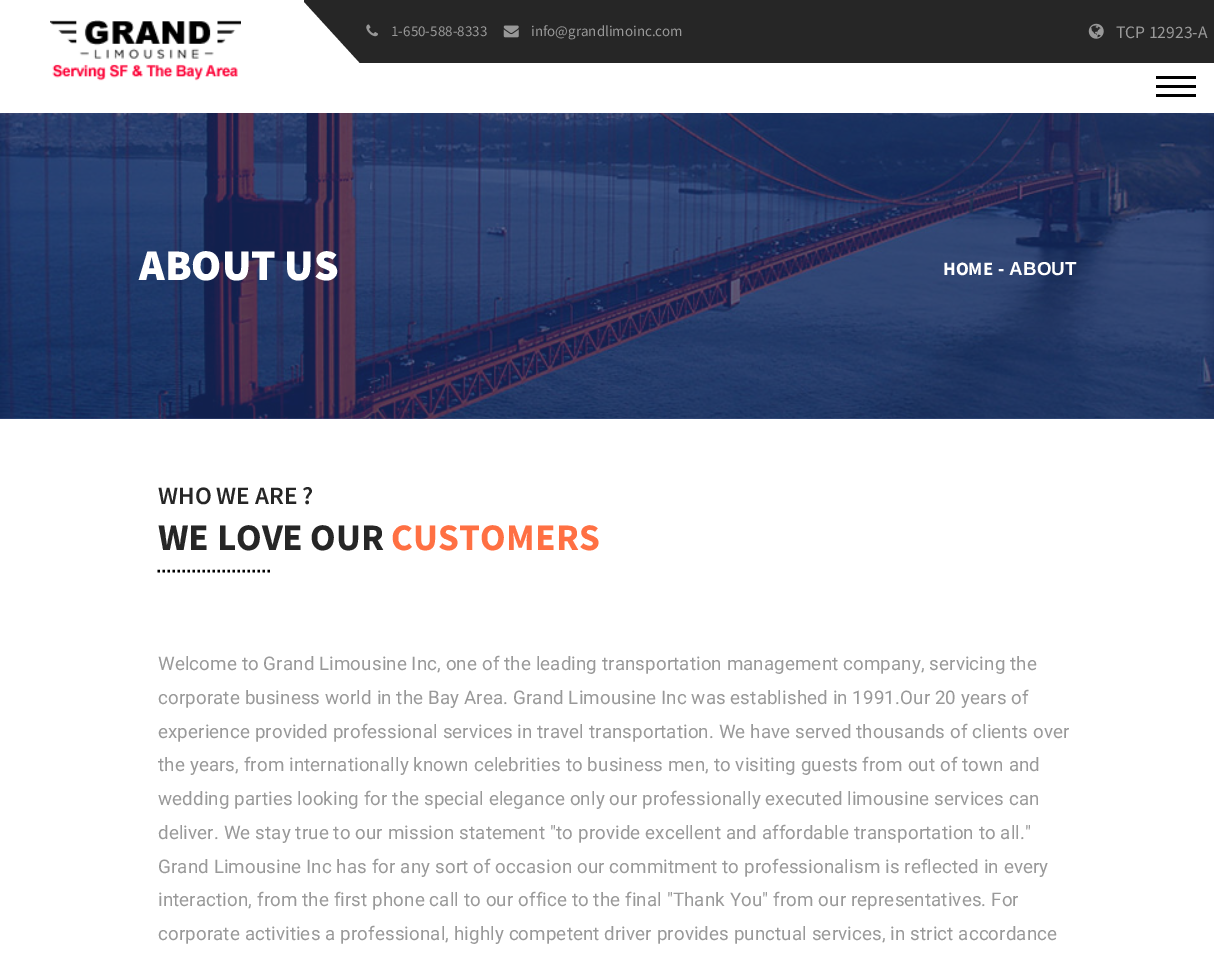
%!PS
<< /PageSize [1214 968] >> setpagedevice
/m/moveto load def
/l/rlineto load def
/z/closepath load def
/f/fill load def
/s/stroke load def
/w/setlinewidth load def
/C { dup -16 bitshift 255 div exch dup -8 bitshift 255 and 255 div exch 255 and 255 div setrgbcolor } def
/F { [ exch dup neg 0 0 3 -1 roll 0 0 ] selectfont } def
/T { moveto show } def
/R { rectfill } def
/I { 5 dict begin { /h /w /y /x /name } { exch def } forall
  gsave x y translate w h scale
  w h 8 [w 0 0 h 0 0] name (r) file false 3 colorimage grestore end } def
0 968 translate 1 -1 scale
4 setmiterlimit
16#FFFFFF C
0 0 1214 968 R
(1.rgb) 50 20 191 61 I
16#262626 C
304 0 910 63 R
16#FFFFFF C
301 68 m 0 -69 l 63 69 l z f
(2.rgb) 366 24 12 13 I
/SourceSansPro-Regular 15 F
16#999999 C
(1-650-588-8333) 391 36 T
(3.rgb) 503 25 16 13 I
(info@grandlimoinc.com) 531 36 T
(4.rgb) 1088 23 16 16 I
/SourceSansPro-Regular 17.5 F
(TCP 12923-A) 1116 38 T
16#000000 C
1156 85 40 3 R
1156 76 40 3 R
1156 94 40 3 R
(5.rgb) 0 113 1214 306 I
/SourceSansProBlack-Black 43.75 F
16#FFFFFF C
(ABOUT US) 139 280 T
/SourceSansPro-Bold 18.75 F
(HOME) 943 275 T
/LiberationSans-Bold 18.75 F
(- ABOUT) 998 275 T
/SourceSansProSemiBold-SemiBold 25 F
16#262626 C
(WHO WE ARE ?) 158 504 T
/SourceSansPro-Bold 37.5 F
(WE LOVE OUR) 158 550 T
16#FF7043 C
391 550 m .25 0 (CUSTOMERS) ashow
16#000000 C
2.5 w
[2.5 2.5] 0 setdash
157.5 571 m 112.5 0 l s
/Roboto-Regular 18.75 F
16#999999 C
158 670 m .12 0 (Welcome to Grand Limousine Inc, one of the leading transportation management company, servicing the) ashow
158 704 m .12 0 (corporate business world in the Bay Area. Grand Limousine Inc was established in 1991.Our 20 years of) ashow
158 738 m .12 0 (experience provided professional services in travel transportation. We have served thousands of clients over) ashow
158 771 m .12 0 (the years, from internationally known celebrities to business men, to visiting guests from out of town and) ashow
158 805 m .12 0 (wedding parties looking for the special elegance only our professionally executed limousine services can) ashow
158 839 m .12 0 (deliver. We stay true to our mission statement "to provide excellent and affordable transportation to all.") ashow
158 873 m .12 0 (Grand Limousine Inc has for any sort of occasion our commitment to professionalism is reflected in every) ashow
158 906 m .12 0 (interaction, from the first phone call to our office to the final "Thank You" from our representatives. For) ashow
158 940 m .12 0 (corporate activities a professional, highly competent driver provides punctual services, in strict accordance) ashow
showpage
